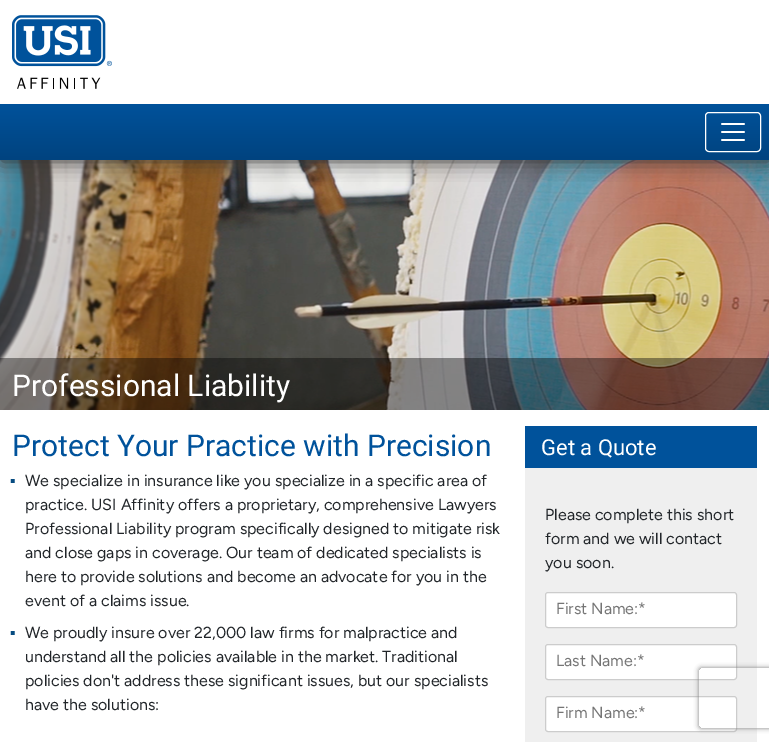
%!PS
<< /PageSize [769 742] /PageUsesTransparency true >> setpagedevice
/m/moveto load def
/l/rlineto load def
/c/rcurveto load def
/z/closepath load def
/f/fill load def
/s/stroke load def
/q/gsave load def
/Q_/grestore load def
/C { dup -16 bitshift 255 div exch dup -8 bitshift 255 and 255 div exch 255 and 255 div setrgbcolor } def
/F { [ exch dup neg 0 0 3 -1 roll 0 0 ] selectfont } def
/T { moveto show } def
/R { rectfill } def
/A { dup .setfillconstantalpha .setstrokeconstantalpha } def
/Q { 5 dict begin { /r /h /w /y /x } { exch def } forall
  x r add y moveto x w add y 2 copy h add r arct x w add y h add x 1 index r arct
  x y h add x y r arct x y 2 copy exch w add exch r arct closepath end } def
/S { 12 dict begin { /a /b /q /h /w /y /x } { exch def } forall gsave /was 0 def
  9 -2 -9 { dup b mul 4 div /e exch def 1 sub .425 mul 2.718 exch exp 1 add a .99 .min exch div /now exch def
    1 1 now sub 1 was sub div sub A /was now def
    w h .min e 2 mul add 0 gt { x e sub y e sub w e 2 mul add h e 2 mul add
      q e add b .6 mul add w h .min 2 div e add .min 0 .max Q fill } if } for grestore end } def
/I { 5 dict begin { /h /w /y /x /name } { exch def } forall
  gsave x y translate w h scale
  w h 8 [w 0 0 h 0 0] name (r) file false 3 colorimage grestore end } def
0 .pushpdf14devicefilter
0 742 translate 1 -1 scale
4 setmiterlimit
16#FFFFFF C
0 0 769 742 R
(3.rgb) 0 160 769 250 I
q
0 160 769 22 rectclip
16#333333 C
1 1 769 160 0 10 1 S
Q_
(1.rgb) 12 15 100 74 I
q 0 104 m 769 0 l 0 56 l -769 0 l z clip newpath
<< /ShadingType 2 /ColorSpace /DeviceRGB /Coords [385 104 385 160] /Extend [true true] /Function << /FunctionType 2 /Domain [0 1] /C0 [0 .322 .608] /C1 [0 .263 .498] /N 1 >> >> shfill Q_
705.5 112.5 55 39 3.5 Q s
(2.rgb) 721 123 24 18 I
0.4 A
16#000000 C
0 358 769 52 R
/Roboto-Regular 30 F
1 A
16#FFFFFF C
(Professional Liability) 12 396 T
16#00529B C
(Protect Your Practice with Precision) 12 456 T
/LiberationSans-Regular 16 F
16#074C81 C
(▪) 10 486 T
/Figtree-Regular 16 F
16#212529 C
(We specialize in insurance like you specialize in a specific area of) 25 486 T
(practice. USI Affinity offers a proprietary, comprehensive Lawyers) 25 510 T
(Professional Liability program specifically designed to mitigate risk) 25 534 T
(and close gaps in coverage. Our team of dedicated specialists is) 25 558 T
(here to provide solutions and become an advocate for you in the) 25 582 T
(event of a claims issue.) 25 606 T
/LiberationSans-Regular 16 F
16#074C81 C
(▪) 10 638 T
/Figtree-Regular 16 F
16#212529 C
(We proudly insure over 22,000 law firms for malpractice and) 25 638 T
(understand all the policies available in the market. Traditional) 25 662 T
(policies don't address these significant issues, but our specialists) 25 686 T
(have the solutions:) 25 710 T
16#EFEFEF C
525 468 232 274 R
16#00529B C
525 426 232 42 R
/Roboto-Regular 22 F
16#FFFFFF C
(Get a Quote) 541 455 T
/Figtree-Regular 16 F
16#212529 C
(Please complete this short) 545 520 T
(form and we will contact) 545 544 T
(you soon.) 545 568 T
16#FFFFFF C
545.5 592.5 191 35 2.5 Q q f Q_
16#CCCCCC C
s
16#757575 C
(First Name:*) 556 614 T
16#FFFFFF C
545.5 644.5 191 35 2.5 Q q f Q_
16#CCCCCC C
s
16#757575 C
(Last Name:*) 556 666 T
16#FFFFFF C
545.5 696.5 191 35 2.5 Q q f Q_
16#CCCCCC C
s
16#757575 C
(Firm Name:*) 556 718 T
q
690 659 m 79 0 l 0 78 l -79 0 l z 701 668 m 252 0 l 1 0 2 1 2 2 c 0 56 l 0 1 -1 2 -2 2 c -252 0 l -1 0 -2 -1 -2 -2 c 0 -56 l 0 -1 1 -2 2 -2 c z eoclip newpath
16#808080 C
699 668 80 60 2 2.5 1 S
Q_
.poppdf14devicefilter showpage
